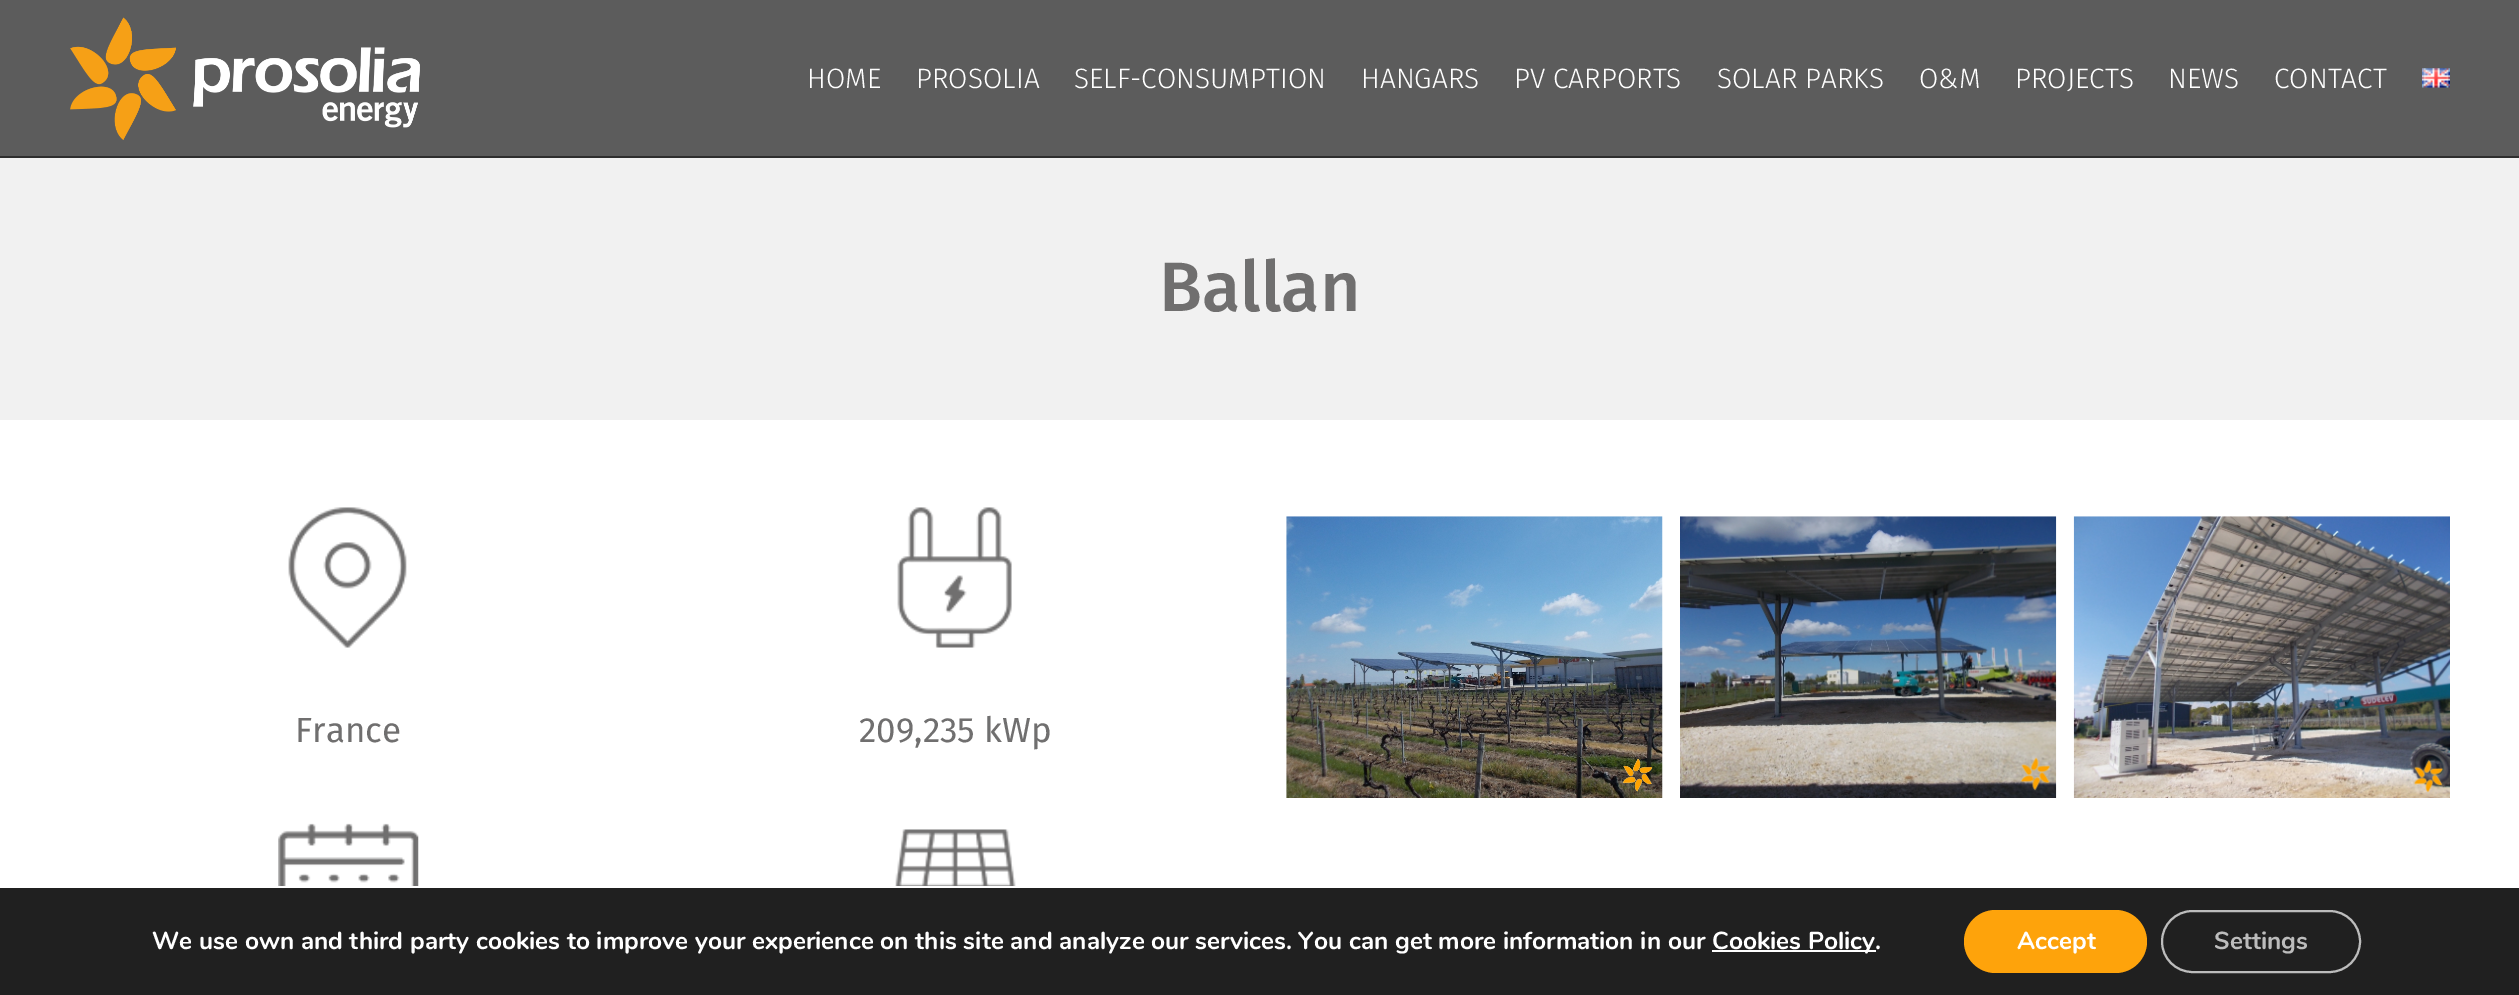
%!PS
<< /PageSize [2519 995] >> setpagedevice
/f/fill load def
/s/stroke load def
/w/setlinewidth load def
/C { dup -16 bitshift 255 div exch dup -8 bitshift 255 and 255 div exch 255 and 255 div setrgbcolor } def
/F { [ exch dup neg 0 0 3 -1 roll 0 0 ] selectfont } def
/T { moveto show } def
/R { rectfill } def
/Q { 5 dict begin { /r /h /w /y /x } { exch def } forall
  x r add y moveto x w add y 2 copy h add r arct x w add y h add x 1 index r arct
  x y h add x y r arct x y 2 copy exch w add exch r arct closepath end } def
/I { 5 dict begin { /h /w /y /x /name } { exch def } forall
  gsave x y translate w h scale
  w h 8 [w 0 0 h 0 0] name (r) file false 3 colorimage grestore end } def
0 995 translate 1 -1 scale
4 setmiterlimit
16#FFFFFF C
0 0 2519 995 R
16#5C5C5C C
0 0 2519 156 R
16#2E2E2E C
0 156 2519 2 R
(1.rgb) 70 17 350 123 I
/FiraSans-Light 28 F
16#FFFFFF C
(HOME) 807 88 T
(PROSOLIA) 916 88 T
(SELF-CONSUMPTION) 1074 88 T
(HANGARS) 1361 88 T
(PV CARPORTS) 1514 88 T
(SOLAR PARKS) 1717 88 T
(O&M) 1919 88 T
(PROJECTS) 2015 88 T
(NEWS) 2168 88 T
(CONTACT) 2274 88 T
(2.rgb) 2422 68 28 20 I
16#F1F1F1 C
0 158 2519 262 R
/FiraSans-Medium 70 F
16#706F6F C
(Ballan) 1159 311 T
(3.rgb) 288 507 119 141 I
/FiraSans-Regular 35 F
(France) 295 742 T
(4.rgb) 897 507 115 141 I
(209,235 kWp) 859 742 T
(5.rgb) 278 823 141 63 I
(6.rgb) 895 829 121 57 I
(7.rgb) 1286 516 377 282 I
(8.rgb) 1680 516 377 282 I
(9.rgb) 2073 516 377 282 I
16#202020 C
0 888 2519 107 R
/Nunito-Bold 24.5 F
16#FFFFFF C
(We use own and third party cookies to improve your experience on this site and analyze our services. You can get more information in our) 152 949 T
1712 950 164 2 R
(Cookies Policy.) 1712 949 T
16#FEA30B C
1964 910 183 63 31.5 Q f
16#FFFFFF C
(Accept) 2017 949 T
16#BCBCBC C
2 w
2162 911 198 61 30.5 Q s
(Settings) 2214 949 T
showpage
